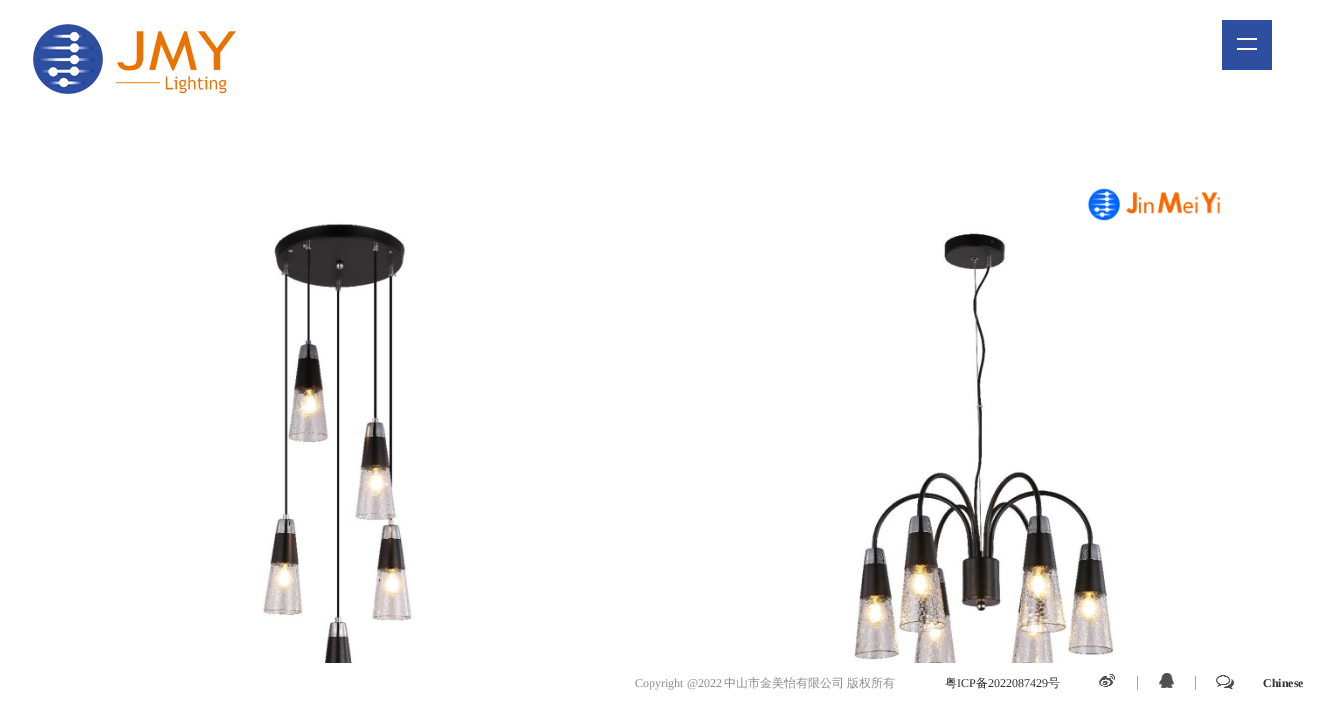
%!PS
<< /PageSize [1322 703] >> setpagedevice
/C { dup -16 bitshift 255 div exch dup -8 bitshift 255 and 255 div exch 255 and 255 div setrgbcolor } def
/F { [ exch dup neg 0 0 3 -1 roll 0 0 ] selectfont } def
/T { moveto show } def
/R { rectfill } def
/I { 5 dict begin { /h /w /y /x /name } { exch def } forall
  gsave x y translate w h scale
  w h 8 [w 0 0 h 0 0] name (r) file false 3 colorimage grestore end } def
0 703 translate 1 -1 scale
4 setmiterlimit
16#FFFFFF C
0 0 1322 703 R
(1.rgb) 33 24 203 70 I
16#2E4EA0 C
1222 20 50 50 R
16#FFFFFF C
1237 38 20 2 R
1237 48 20 2 R
(2.rgb) 262 188 959 475 I
/LiberationSerif-Regular 12 F
16#8E8E8E C
(Copyright @2022) 635 687 T
/WenQuanYiZenHei-Medium 12 F
(中山市金美怡有限公司) 724 687 T
(版权所有) 847 687 T
16#333333 C
(粤) 945 687 T
/LiberationSerif-Regular 12 F
(ICP) 957 687 T
/WenQuanYiZenHei-Medium 12 F
(备) 976 687 T
/LiberationSerif-Regular 12 F
(2022087429) 988 687 T
/WenQuanYiZenHei-Medium 12 F
(号) 1048 687 T
16#A7A7A7 C
1137 676 1 14 R
(3.rgb) 1099 674 17 13 I
1195 676 1 14 R
(4.rgb) 1159 673 15 15 I
(5.rgb) 1216 675 19 14 I
/LiberationSerif-Bold 12 F
16#333333 C
(Chinese) 1263 687 T
showpage
